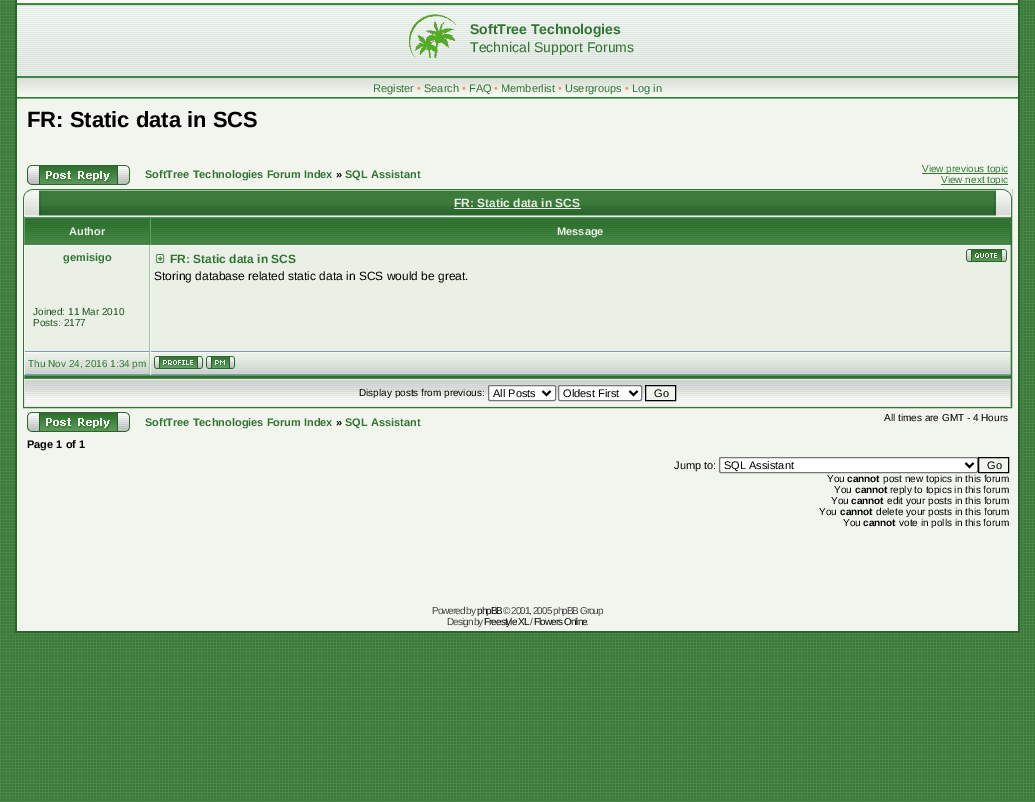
%!PS
<< /PageSize [1035 802] >> setpagedevice
/m/moveto load def
/l/rlineto load def
/z/closepath load def
/f/fill load def
/s/stroke load def
/q/gsave load def
/Q_/grestore load def
/w/setlinewidth load def
/C { dup -16 bitshift 255 div exch dup -8 bitshift 255 and 255 div exch 255 and 255 div setrgbcolor } def
/F { [ exch dup neg 0 0 3 -1 roll 0 0 ] selectfont } def
/T { moveto show } def
/R { rectfill } def
/Q { 5 dict begin { /r /h /w /y /x } { exch def } forall
  x r add y moveto x w add y 2 copy h add r arct x w add y h add x 1 index r arct
  x y h add x y r arct x y 2 copy exch w add exch r arct closepath end } def
/I { 5 dict begin { /h /w /y /x /name } { exch def } forall
  gsave x y translate w h scale
  w h 8 [w 0 0 h 0 0] name (r) file false 3 colorimage grestore end } def
0 802 translate 1 -1 scale
4 setmiterlimit
16#FFFFFF C
0 0 1035 802 R
(1.rgb) 0 633 1035 169 I
(2.rgb) 0 0 1035 633 I
16#F2F5ED C
17 99 1001 532 R
16#28662C C
1018 0 2 633 R
15 631 1005 2 R
15 0 2 633 R
(3.rgb) 17 0 1001 76 I
(4.rgb) 409 14 47 44 I
/LiberationSans-Bold 14 F
16#327533 C
(SoftTree Technologies) 470 34 T
/LiberationSans-Regular 14 F
(Technical Support Forums) 470 52 T
(5.rgb) 17 76 1001 23 I
/LiberationSans-Regular 11 F
(Register) 373 92 T
16#FF964A C
(•) 417 92 T
16#327533 C
(Search) 424 92 T
16#FF964A C
(•) 462 92 T
16#327533 C
(FAQ) 469 92 T
16#FF964A C
(•) 494 92 T
16#327533 C
(Memberlist) 501 92 T
16#FF964A C
(•) 558 92 T
16#327533 C
(Usergroups) 565 92 T
16#FF964A C
(•) 625 92 T
16#327533 C
(Log in) 632 92 T
/LiberationSans-Bold 22 F
16#000000 C
(FR: Static data in SCS) 27 127 T
(6.rgb) 27 165 103 20 I
/LiberationSans-Bold 11 F
16#327533 C
(SoftTree Technologies Forum Index) 145 178 T
16#000000 C
(») 336 178 T
16#327533 C
(SQL Assistant) 345 178 T
922 173 86 1 R
/LiberationSans-Regular 10 F
(View previous topic) 922 172 T
941 184 67 1 R
(View next topic) 941 183 T
16#EAF0E6 C
24 216 987 135 R
16#327533 C
23.5 189.5 988 218 rectstroke
(7.rgb) 42 190 6 26 I
(8.rgb) 23 189 19 27 I
(9.rgb) 48 190 939 26 I
/LiberationSans-Bold 12 F
16#EAF0E6 C
(FR: Static data in SCS) 454 207 T
454 208 127 1 R
(7.rgb) 987 190 6 26 I
(10.rgb) 993 189 19 27 I
(11.rgb) 25 218 124 26 I
16#589D57 C
24 217 987 1 R
16#377335 C
149 217 1 28 R
16#4C8D48 C
24 244 126 1 R
16#5FA45B C
24 217 1 28 R
/LiberationSans-Bold 11 F
16#EAF0E6 C
(Author) 69 235 T
(12.rgb) 151 218 859 26 I
16#377335 C
1010 217 1 28 R
16#4C8D48 C
150 244 861 1 R
16#5FA45B C
150 217 1 28 R
16#EAF0E6 C
(Message) 557 235 T
16#F5F7F9 C
24 245 987 1 R
16#A2C6A1 C
149 245 1 107 R
16#849AB1 C
24 351 126 1 R
16#F5F7F9 C
24 245 1 107 R
16#327533 C
(gemisigo) 63 261 T
/LiberationSans-Regular 10 F
16#1E531E C
(Joined: 11 Mar 2010) 33 315 T
(Posts: 2177) 33 326 T
16#A2C6A1 C
1010 245 1 107 R
16#849AB1 C
150 351 861 1 R
16#F5F7F9 C
150 245 1 107 R
(13.rgb) 155 254 10 9 I
/LiberationSans-Bold 12 F
16#327533 C
(FR: Static data in SCS) 170 263 T
(14.rgb) 966 249 41 13 I
/LiberationSans-Regular 12 F
16#000000 C
(Storing database related static data in SCS would be great.) 154 280 T
16#CED2D7 C
25 371 124 3 R
(15.rgb) 25 353 124 18 I
16#F5F7F9 C
24 352 987 1 R
16#A2C6A1 C
149 352 1 23 R
16#849AB1 C
24 374 126 1 R
16#F5F7F9 C
24 352 1 23 R
/LiberationSans-Regular 10 F
16#327533 C
(Thu Nov 24, 2016 1:34 pm) 28 367 T
16#CED2D7 C
151 371 859 3 R
(16.rgb) 151 353 859 18 I
16#A2C6A1 C
1010 352 1 23 R
16#849AB1 C
150 374 861 1 R
16#F5F7F9 C
150 352 1 23 R
(17.rgb) 154 356 49 13 I
(18.rgb) 206 356 29 13 I
16#316D35 C
24 376 987 2 R
16#589D57 C
24 375 987 1 R
16#377335 C
1010 375 1 4 R
16#4C8D48 C
24 378 987 1 R
16#5FA45B C
24 375 1 4 R
(19.rgb) 25 380 985 26 I
16#E7E8E2 C
24 379 987 1 R
16#B8C0B8 C
1010 379 1 28 R
16#E7E8E2 C
24 406 987 1 R
24 379 1 28 R
16#000000 C
(Display posts from previous:) 359 396 T
16#FFFFFF C
488.5 385.5 67 15 1.5 Q q f Q_
16#767676 C
s
16#000000 C
2 w
542.5 391 m 4 4 l 4 -4 l s
/LiberationSans-Regular 11 F
(All Posts) 493 397 T
16#FFFFFF C
558.5 385.5 83 15 1.5 Q q f Q_
16#767676 C
1 w
s
16#000000 C
2 w
629.5 391 m 4 4 l 4 -4 l s
(Oldest First) 563 397 T
16#F0F5EE C
645.5 385.5 m 30 0 l 0 15 l -30 0 l z q f Q_
16#000000 C
1 w
s
(Go) 654 397 T
(6.rgb) 27 412 103 20 I
/LiberationSans-Bold 11 F
16#327533 C
(SoftTree Technologies Forum Index) 145 426 T
16#000000 C
(») 336 426 T
16#327533 C
(SQL Assistant) 345 426 T
/LiberationSans-Regular 10 F
16#000000 C
(All times are GMT - 4 Hours) 884 421 T
/LiberationSans-Bold 11 F
(Page 1 of 1) 27 448 T
/LiberationSans-Regular 11 F
(Jump to:) 674 469 T
16#FFFFFF C
719.5 457.5 258 15 1.5 Q q f Q_
16#767676 C
s
16#000000 C
2 w
965.5 463 m 4 4 l 4 -4 l s
(SQL Assistant) 724 469 T
1 w
978.5 457.5 30 15 rectstroke
(Go) 987 469 T
/LiberationSans-Regular 10 F
(You) 827 482 T
/LiberationSans-Bold 10 F
(cannot) 847 482 T
/LiberationSans-Regular 10 F
(post new topics in this forum) 883 482 T
(You) 834 493 T
/LiberationSans-Bold 10 F
(cannot) 855 493 T
/LiberationSans-Regular 10 F
(reply to topics in this forum) 890 493 T
(You) 831 504 T
/LiberationSans-Bold 10 F
(cannot) 851 504 T
/LiberationSans-Regular 10 F
(edit your posts in this forum) 887 504 T
(You) 819 515 T
/LiberationSans-Bold 10 F
(cannot) 840 515 T
/LiberationSans-Regular 10 F
(delete your posts in this forum) 876 515 T
(You) 843 526 T
/LiberationSans-Bold 10 F
(cannot) 863 526 T
/LiberationSans-Regular 10 F
(vote in polls in this forum) 899 526 T
16#444444 C
432 614 m -1 0 (Powered by) ashow
16#000000 C
477 614 m -1 0 (phpBB) ashow
16#444444 C
503 614 m -1 0 (© 2001, 2005 phpBB Group) ashow
447 625 m -1 0 (Design by) ashow
16#000000 C
484 625 m -1 0 (Freestyle XL) ashow
16#444444 C
530 625 m -1 0 (/) ashow
16#000000 C
534 625 m -1 0 (Flowers Online) ashow
16#444444 C
586 625 m -1 0 (.) ashow
showpage
